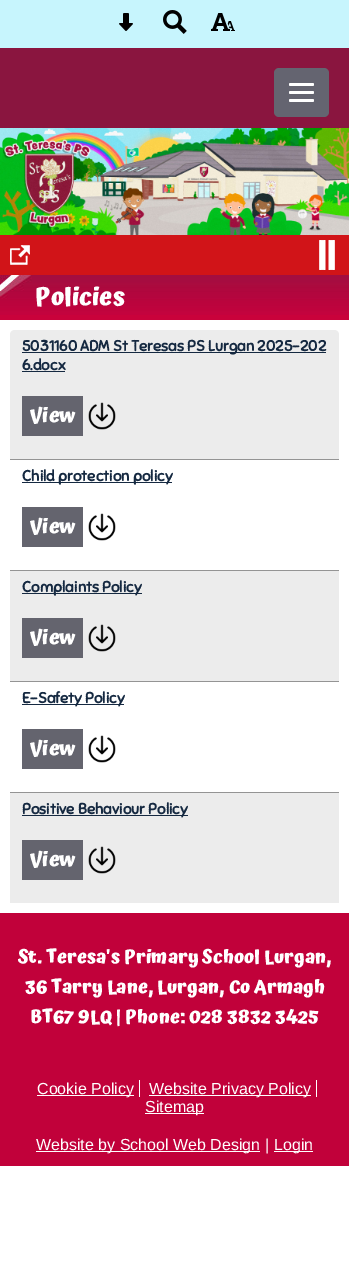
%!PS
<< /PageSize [349 1285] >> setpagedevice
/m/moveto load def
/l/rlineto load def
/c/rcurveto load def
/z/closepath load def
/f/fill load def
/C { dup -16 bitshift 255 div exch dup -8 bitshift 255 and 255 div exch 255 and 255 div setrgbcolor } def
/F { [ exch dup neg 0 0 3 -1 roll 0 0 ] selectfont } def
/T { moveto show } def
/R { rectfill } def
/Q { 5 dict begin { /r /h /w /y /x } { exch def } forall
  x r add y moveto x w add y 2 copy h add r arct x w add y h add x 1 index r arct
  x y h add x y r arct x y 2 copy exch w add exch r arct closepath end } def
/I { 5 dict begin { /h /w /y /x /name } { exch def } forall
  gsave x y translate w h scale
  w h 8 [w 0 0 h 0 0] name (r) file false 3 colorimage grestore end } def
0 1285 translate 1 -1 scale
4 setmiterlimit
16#FFFFFF C
0 0 349 1285 R
16#C7F5FD C
0 0 349 48 R
(1.rgb) 119 13 14 18 I
(2.rgb) 163 10 24 24 I
(3.rgb) 211 13 24 18 I
16#8A153F C
0 48 349 80 R
16#646470 C
274 68 55 49 5 Q f
16#FFFFFF C
289 83 25 3 1.5 Q f
289 91 25 3 1.5 Q f
289 99 25 3 1.5 Q f
(4.rgb) 0 128 349 107 I
16#D11418 C
0 235 349 40 R
(5.rgb) 10 245 20 20 I
(6.rgb) 319 240 16 30 I
16#C9023B C
0 315 349 5 R
(7.rgb) 0 275 349 40 I
/Atma-Bold 24.5 F
16#FFFFFF C
(Policies) 35 305 T
16#ECECEC C
15 330 m 319 0 l 3 0 5 2 5 5 c 0 124 l -329 0 l 0 -124 l 0 -3 2 -5 5 -5 c z f
16#949494 C
10 459 329 1 R
16#152941 C
22 352 304 1 R
/Sniglet-Bold 15.2 F
(5031160 ADM St Teresas PS Lurgan 2025-202) 22 351 T
(6.docx) 22 370 T
22 371 43 1 R
16#64646E C
22 396 61 40 R
/Atma-Bold 20 F
16#FFFFFF C
(View) 30 422 T
(8.rgb) 88 402 28 28 I
16#949494 C
10 570 329 1 R
16#152941 C
22 482 150 1 R
/Sniglet-Bold 15.2 F
(Child protection policy) 22 481 T
16#64646E C
22 507 61 40 R
/Atma-Bold 20 F
16#FFFFFF C
(View) 30 533 T
(9.rgb) 88 513 28 28 I
16#ECECEC C
10 571 329 110 R
16#949494 C
10 681 329 1 R
16#152941 C
22 593 120 1 R
/Sniglet-Bold 15.2 F
(Complaints Policy) 22 592 T
16#64646E C
22 618 61 40 R
/Atma-Bold 20 F
16#FFFFFF C
(View) 30 644 T
(8.rgb) 88 624 28 28 I
16#949494 C
10 792 329 1 R
16#152941 C
22 704 102 1 R
/Sniglet-Bold 15.2 F
(E-Safety Policy) 22 703 T
16#64646E C
22 729 61 40 R
/Atma-Bold 20 F
16#FFFFFF C
(View) 30 755 T
(9.rgb) 88 735 28 28 I
16#ECECEC C
10 793 329 110 R
16#152941 C
22 815 166 1 R
/Sniglet-Bold 15.2 F
(Positive Behaviour Policy) 22 814 T
16#64646E C
22 840 61 40 R
/Atma-Bold 20 F
16#FFFFFF C
(View) 30 866 T
(8.rgb) 88 846 28 28 I
16#C1013A C
0 913 349 253 R
/Atma-Bold 18.6 F
16#FFFFFF C
(St. Teresa's Primary School Lurgan,) 18 963 T
(36 Tarry Lane, Lurgan, Co Armagh) 25 993 T
(BT67 9LQ | Phone: 028 3832 3425) 30 1023 T
37 1095 97 1 R
/LiberationSans-Regular 16 F
(Cookie Policy) 37 1094 T
139 1080 1 17 R
149 1095 162 1 R
(Website Privacy Policy) 149 1094 T
316 1080 1 17 R
145 1113 59 1 R
(Sitemap) 145 1112 T
36 1151 224 1 R
(Website by School Web Design |) 36 1150 T
274 1151 39 1 R
(Login) 274 1150 T
showpage
